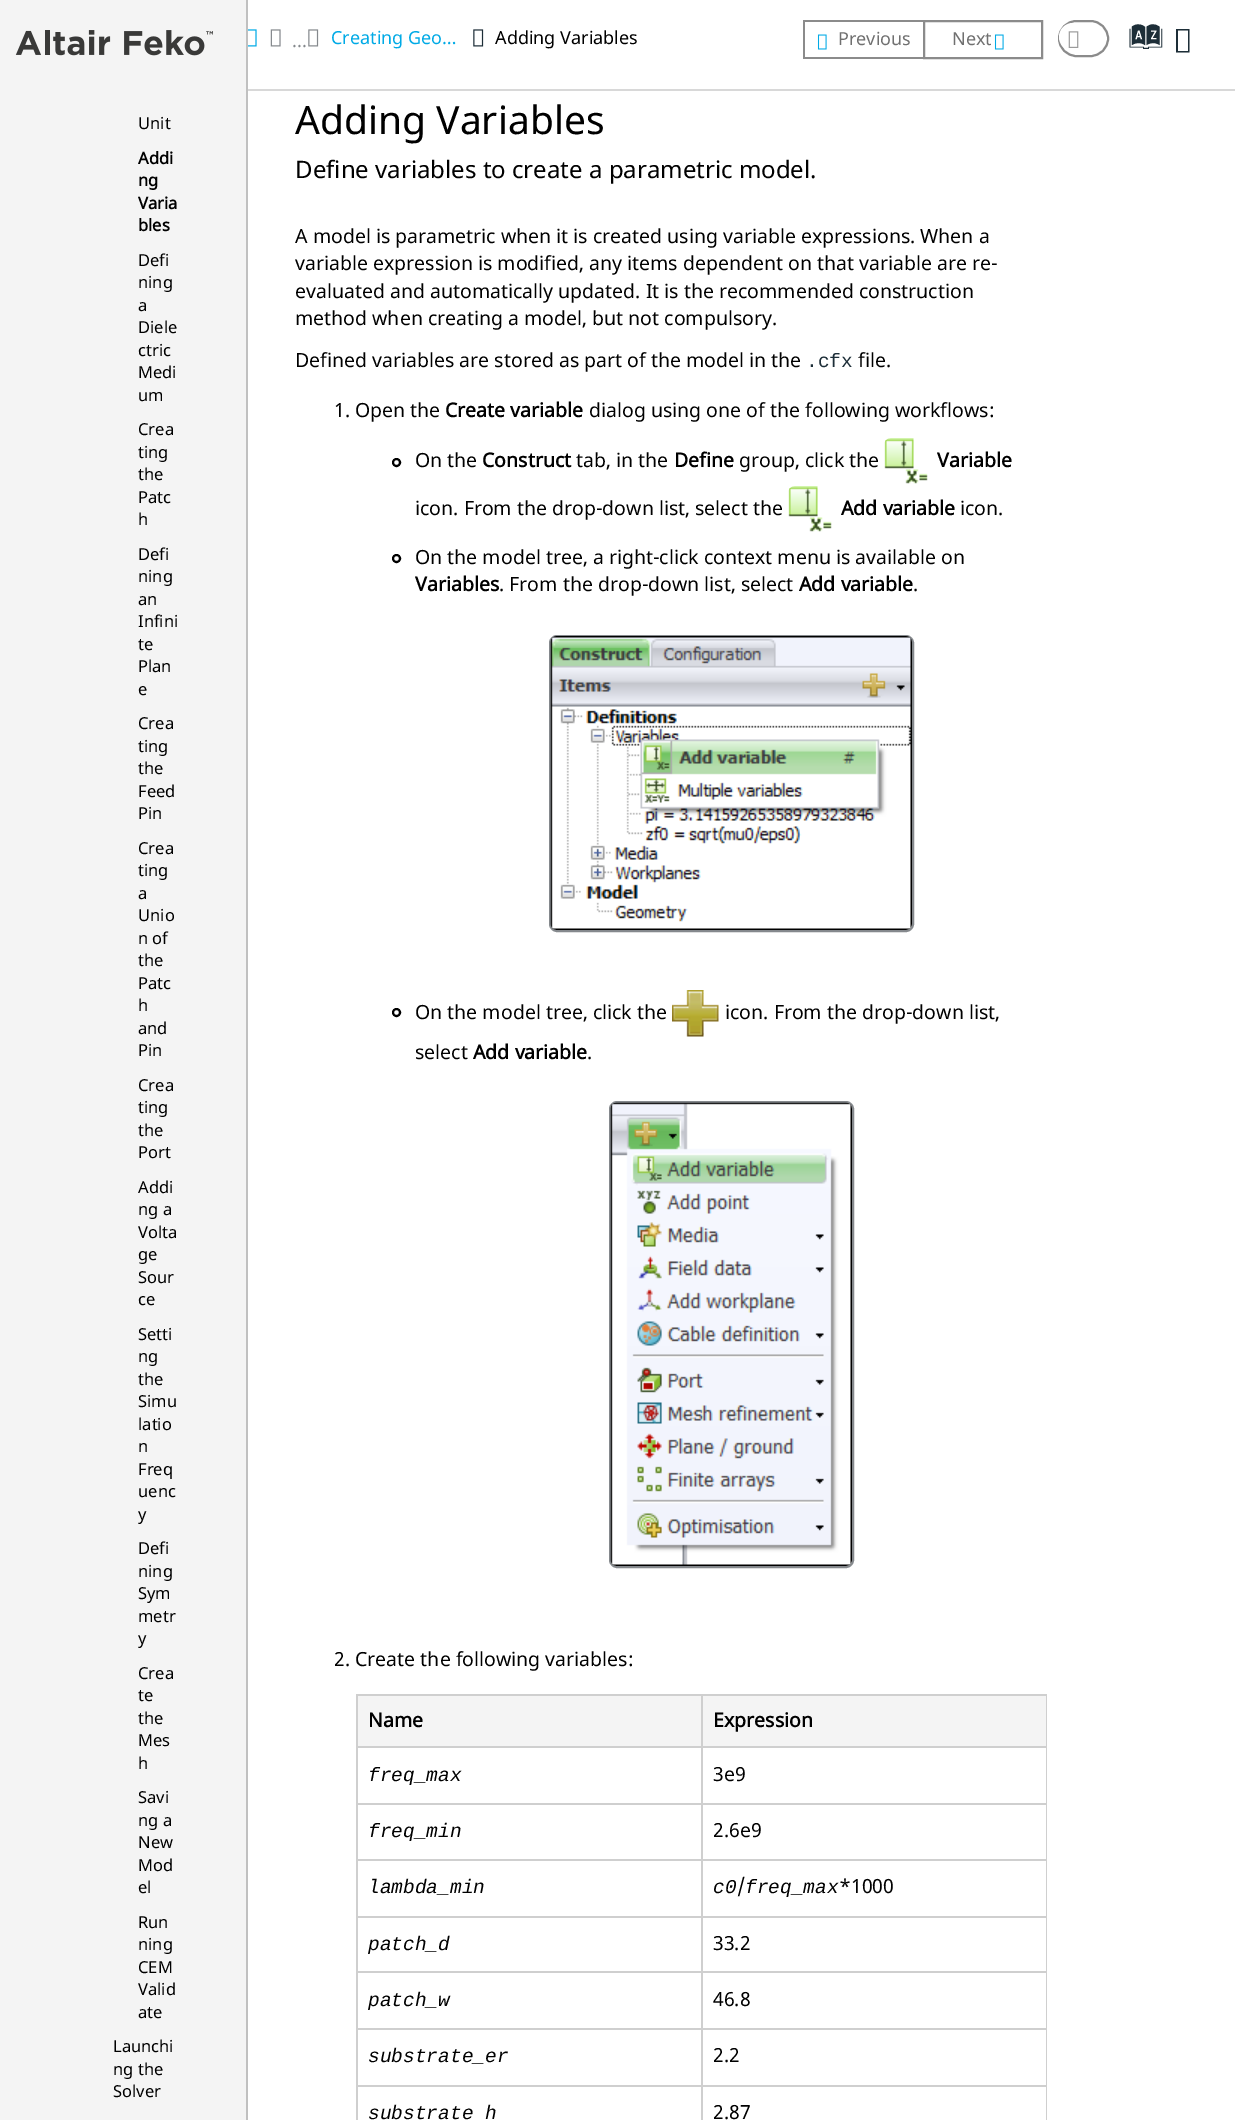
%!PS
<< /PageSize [1235 2120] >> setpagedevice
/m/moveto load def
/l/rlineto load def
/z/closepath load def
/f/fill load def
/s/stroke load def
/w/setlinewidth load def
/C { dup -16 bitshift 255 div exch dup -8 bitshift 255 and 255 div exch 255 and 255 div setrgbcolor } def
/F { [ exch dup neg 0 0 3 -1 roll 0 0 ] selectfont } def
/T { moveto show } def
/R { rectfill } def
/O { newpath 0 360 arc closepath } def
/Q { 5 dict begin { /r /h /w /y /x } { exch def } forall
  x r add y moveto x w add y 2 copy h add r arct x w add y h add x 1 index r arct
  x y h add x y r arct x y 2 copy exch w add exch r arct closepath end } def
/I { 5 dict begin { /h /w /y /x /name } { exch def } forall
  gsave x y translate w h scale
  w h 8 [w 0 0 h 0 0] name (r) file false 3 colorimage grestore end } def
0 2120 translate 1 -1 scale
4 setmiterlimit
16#FFFFFF C
0 0 1235 2120 R
16#F4F4F4 C
0 0 246 2120 R
16#C0C0C0 C
246 0 2 2120 R
(1.rgb) 15 30 198 26 I
/NotoSans-Regular 16.5 F
16#000000 C
(Unit) 138 129 T
/NotoSans-Bold 16.5 F
(Addi) 138 164 T
(ng) 138 186 T
(Varia) 138 209 T
(bles) 138 231 T
/NotoSans-Regular 16.5 F
(Defi) 138 266 T
(ning) 138 288 T
(a) 138 311 T
(Diele) 138 333 T
(ctric) 138 356 T
(Medi) 138 378 T
(um) 138 401 T
(Crea) 138 435 T
(ting) 138 458 T
(the) 138 480 T
(Patc) 138 503 T
(h) 138 525 T
(Defi) 138 560 T
(ning) 138 582 T
(an) 138 605 T
(Infini) 138 627 T
(te) 138 650 T
(Plan) 138 672 T
(e) 138 695 T
(Crea) 138 729 T
(ting) 138 752 T
(the) 138 774 T
(Feed) 138 797 T
(Pin) 138 819 T
(Crea) 138 854 T
(ting) 138 876 T
(a) 138 899 T
(Unio) 138 921 T
(n of) 138 944 T
(the) 138 966 T
(Patc) 138 989 T
(h) 138 1011 T
(and) 138 1034 T
(Pin) 138 1056 T
(Crea) 138 1091 T
(ting) 138 1113 T
(the) 138 1136 T
(Port) 138 1158 T
(Addi) 138 1193 T
(ng a) 138 1215 T
(Volta) 138 1238 T
(ge) 138 1260 T
(Sour) 138 1283 T
(ce) 138 1305 T
(Setti) 138 1340 T
(ng) 138 1362 T
(the) 138 1385 T
(Simu) 138 1407 T
(latio) 138 1430 T
(n) 138 1452 T
(Freq) 138 1475 T
(uenc) 138 1497 T
(y) 138 1520 T
(Defi) 138 1554 T
(ning) 138 1577 T
(Sym) 138 1599 T
(metr) 138 1622 T
(y) 138 1644 T
(Crea) 138 1679 T
(te) 138 1701 T
(the) 138 1724 T
(Mes) 138 1746 T
(h) 138 1769 T
(Savi) 138 1803 T
(ng a) 138 1826 T
(New) 138 1848 T
(Mod) 138 1871 T
(el) 138 1893 T
(Run) 138 1928 T
(ning) 138 1950 T
(CEM) 138 1973 T
(Valid) 138 1995 T
(ate) 138 2018 T
(Launchi) 113 2052 T
(ng the) 113 2075 T
(Solver) 113 2097 T
16#D8D8D8 C
248 89 987 2 R
(2.rgb) 248 29 9 18 I
(3.rgb) 270 29 11 18 I
/NotoSans-Regular 18 F
16#85898D C
(...) 292 47 T
(4.rgb) 308 29 11 18 I
16#00AAE6 C
(Creating Geo…) 331 44 T
(5.rgb) 473 29 11 18 I
16#000000 C
(Adding Variables) 495 44 T
16#8B8B8B C
803 20 120 2 R
803 57 120 2 R
803 20 2 39 R
(6.rgb) 817 34 10 16 I
16#707070 C
(Previous) 838 45 T
16#8B8B8B C
2 w
924 21 118 37 rectstroke
16#707070 C
(Next) 952 45 T
(6.rgb) 994 34 10 16 I
16#8B8B8B C
1059 21 49 35 17.5 Q s
16#FFFFFF C
1059 23 30 28 14 Q f
(7.rgb) 1068 31 11 17 I
/Oxygen-Regular 35 F
16#1D2E38 C
(a) 1133 53 T
1176 52.5 m 0 -23.5 l 13.5 0 l 0 23.5 l z 1178 51 m 10 0 l 0 -20.5 l -10 0 l z f
/NotoSans-Regular 39 F
16#000000 C
(Adding Variables) 295 134 T
/NotoSans-Regular 24 F
(Define variables to create a parametric model.) 295 178 T
/NotoSans-Regular 19.5 F
(A model is parametric when it is created using variable expressions. When a) 295 243 T
(variable expression is modified, any items dependent on that variable are re-) 295 270 T
(evaluated and automatically updated. It is the recommended construction) 295 298 T
(method when creating a model, but not compulsory.) 295 325 T
(Defined variables are stored as part of the model in the) 295 367 T
/LiberationMono-Regular 19.5 F
16#1D2E38 C
(.cfx) 806 367 T
/NotoSans-Regular 19.5 F
16#000000 C
(file.) 858 367 T
(1. Open the) 334 417 T
/NotoSans-Bold 19.5 F
(Create variable) 445 417 T
/NotoSans-Regular 19.5 F
(dialog using one of the following workflows:) 589 417 T
396.5 462.5 3.5 O s
(On the) 415 467 T
/NotoSans-Bold 19.5 F
(Construct) 482 467 T
/NotoSans-Regular 19.5 F
(tab, in the) 576 467 T
/NotoSans-Bold 19.5 F
(Define) 674 467 T
/NotoSans-Regular 19.5 F
(group, click the) 739 467 T
(8.rgb) 884 438 44 46 I
/NotoSans-Bold 19.5 F
(Variable) 937 467 T
/NotoSans-Regular 19.5 F
(icon. From the drop-down list, select the) 415 515 T
(8.rgb) 788 486 44 46 I
/NotoSans-Bold 19.5 F
(Add variable) 841 515 T
/NotoSans-Regular 19.5 F
(icon.) 960 515 T
396.5 558.5 3.5 O s
(On the model tree, a right-click context menu is available on) 415 564 T
/NotoSans-Bold 19.5 F
(Variables) 415 591 T
/NotoSans-Regular 19.5 F
(. From the drop-down list, select) 499 591 T
/NotoSans-Bold 19.5 F
(Add variable) 799 591 T
/NotoSans-Regular 19.5 F
(.) 913 591 T
16#85898D C
550 636 363 295 7 Q s
(9.rgb) 550 636 362 294 I
16#000000 C
396.5 1012.5 3.5 O s
(On the model tree, click the) 415 1019 T
(10.rgb) 672 990 47 47 I
(icon. From the drop-down list,) 725 1019 T
(select) 415 1059 T
/NotoSans-Bold 19.5 F
(Add variable) 473 1059 T
/NotoSans-Regular 19.5 F
(.) 587 1059 T
16#85898D C
610 1102 243 465 7 Q s
(11.rgb) 610 1102 242 464 I
16#000000 C
(2. Create the following variables:) 334 1666 T
16#CFCFCF C
356 1694 691 2 R
1046 1694 1 426 R
356 1694 2 426 R
16#F4F4F4 C
358 1696 343 50 R
/NotoSans-Bold 19.5 F
16#000000 C
(Name) 368 1727 T
16#F4F4F4 C
703 1696 343 50 R
16#CFCFCF C
701 1746 346 2 R
701 1803 346 2 R
701 1859 346 2 R
701 1916 346 2 R
701 1971 346 2 R
701 2028 346 2 R
701 2085 346 2 R
701 2085 2 35 R
356 2085 346 2 R
701 2028 2 59 R
356 2028 346 2 R
701 1971 2 59 R
356 1971 346 2 R
701 1916 2 57 R
356 1916 346 2 R
701 1859 2 58 R
356 1859 346 2 R
701 1803 2 57 R
356 1803 346 2 R
701 1746 2 59 R
356 1746 346 2 R
701 1694 2 54 R
16#000000 C
(Expression) 713 1727 T
/LiberationMono-Italic 19.5 F
(freq_max) 368 1781 T
/NotoSans-Regular 19.5 F
(3e9) 713 1781 T
/LiberationMono-Italic 19.5 F
(freq_min) 368 1837 T
/NotoSans-Regular 19.5 F
(2.6e9) 713 1837 T
/LiberationMono-Italic 19.5 F
(lambda_min) 368 1893 T
(c0) 713 1893 T
/NotoSans-Regular 19.5 F
(/) 737 1893 T
/LiberationMono-Italic 19.5 F
(freq_max) 745 1893 T
/NotoSans-Regular 19.5 F
(*1000) 839 1893 T
/LiberationMono-Italic 19.5 F
(patch_d) 368 1950 T
/NotoSans-Regular 19.5 F
(33.2) 713 1950 T
/LiberationMono-Italic 19.5 F
(patch_w) 368 2006 T
/NotoSans-Regular 19.5 F
(46.8) 713 2006 T
/LiberationMono-Italic 19.5 F
(substrate_er) 368 2062 T
/NotoSans-Regular 19.5 F
(2.2) 713 2062 T
/LiberationMono-Italic 19.5 F
(substrate_h) 368 2119 T
/NotoSans-Regular 19.5 F
(2.87) 713 2119 T
showpage
